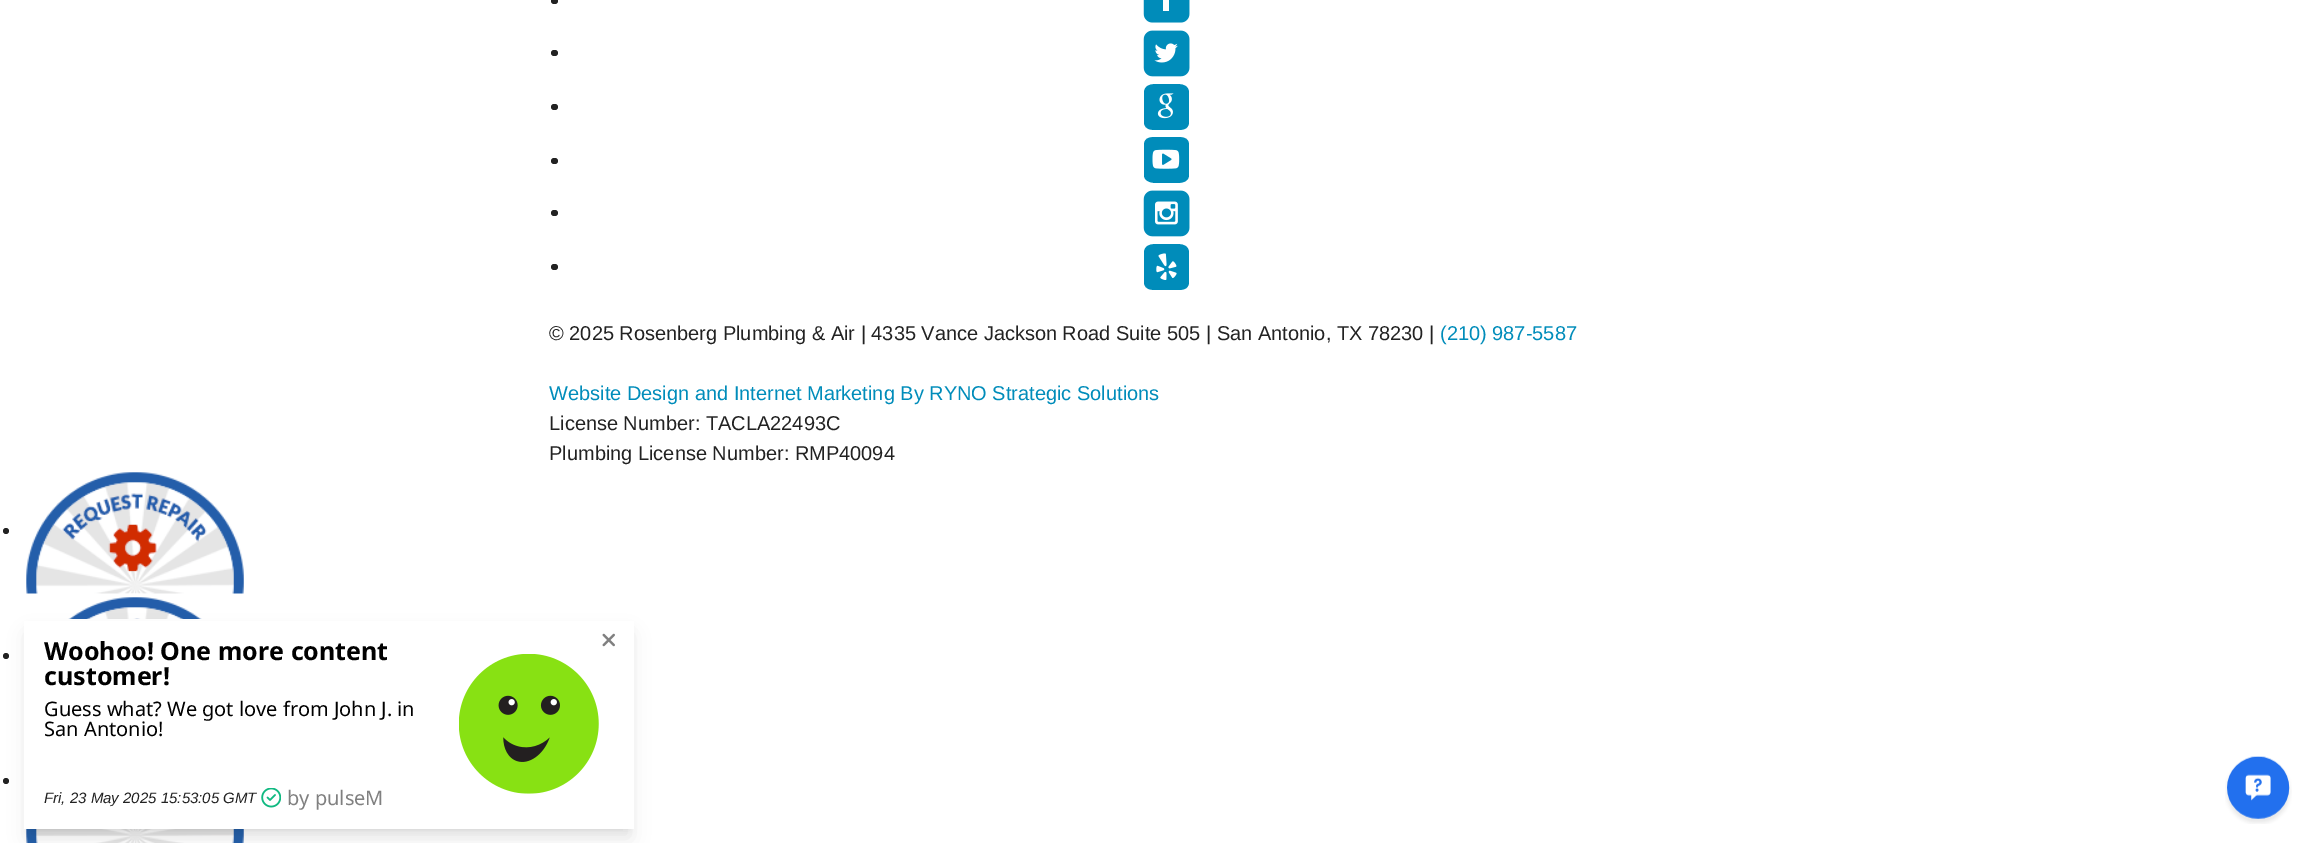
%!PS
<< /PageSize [2310 843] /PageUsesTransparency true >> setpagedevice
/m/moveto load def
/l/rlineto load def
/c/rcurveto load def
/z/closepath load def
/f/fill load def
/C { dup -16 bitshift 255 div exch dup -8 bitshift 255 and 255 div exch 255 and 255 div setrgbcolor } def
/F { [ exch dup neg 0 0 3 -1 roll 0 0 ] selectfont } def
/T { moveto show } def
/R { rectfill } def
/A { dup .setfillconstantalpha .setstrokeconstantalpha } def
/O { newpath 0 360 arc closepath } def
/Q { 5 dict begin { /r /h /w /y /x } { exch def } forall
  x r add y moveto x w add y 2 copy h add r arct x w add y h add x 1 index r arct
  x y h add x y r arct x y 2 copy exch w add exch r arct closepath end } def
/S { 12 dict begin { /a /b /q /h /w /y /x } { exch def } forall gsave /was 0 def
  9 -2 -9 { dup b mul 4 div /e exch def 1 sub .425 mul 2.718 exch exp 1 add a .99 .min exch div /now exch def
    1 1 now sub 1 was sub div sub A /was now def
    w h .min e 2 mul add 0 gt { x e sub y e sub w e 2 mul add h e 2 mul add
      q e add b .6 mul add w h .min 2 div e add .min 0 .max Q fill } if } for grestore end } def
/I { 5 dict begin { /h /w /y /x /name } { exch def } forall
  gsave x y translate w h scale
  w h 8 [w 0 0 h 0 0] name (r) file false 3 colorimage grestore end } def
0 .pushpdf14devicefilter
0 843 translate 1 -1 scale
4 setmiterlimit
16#FFFFFF C
0 0 2310 843 R
16#222222 C
551 -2 7 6 3 Q f
(1.rgb) 1143 0 47 23 I
16#FFFFFF C
1163 0 6 11 R
16#222222 C
551 50 7 6 3 Q f
(2.rgb) 1143 30 47 47 I
(3.rgb) 1154 43 24 20 I
551 104 7 6 3 Q f
16#008CBA C
1189 93 m 0 30 l -1 7 -7 7 -13 7 c -19 0 l -5 0 -12 0 -13 -7 c 0 -30 l 0 -8 7 -9 13 -9 c 19 0 l 6 0 13 1 13 9 c z f
(4.rgb) 1157 93 17 26 I
16#222222 C
551 158 7 6 3 Q f
16#008CBA C
1189 145 m 0 31 l -1 6 -7 7 -13 7 c -19 0 l -5 0 -12 -1 -13 -7 c 0 -31 l 0 -8 7 -8 13 -8 c 19 0 l 6 0 13 0 13 8 c z f
(5.rgb) 1152 149 28 20 I
16#222222 C
551 210 7 6 3 Q f
(2.rgb) 1143 190 47 47 I
(6.rgb) 1155 201 23 24 I
551 264 7 6 3 Q f
16#008CBA C
1189 253 m 0 30 l -1 7 -7 7 -13 7 c -19 0 l -5 0 -12 0 -13 -7 c 0 -30 l 0 -8 7 -9 13 -9 c 19 0 l 6 0 13 1 13 9 c z f
(7.rgb) 1156 253 21 27 I
/LiberationSans-Regular 20 F
16#222222 C
(© 2025 Rosenberg Plumbing & Air | 4335 Vance Jackson Road Suite 505 | San Antonio, TX 78230 |) 549 340 T
16#008CBA C
(\(210\) 987-5587) 1440 340 T
(Website Design and Internet Marketing By RYNO Strategic Solutions) 549 400 T
16#222222 C
(License Number: TACLA22493C) 549 430 T
(Plumbing License Number: RMP40094) 549 460 T
6 531 3 O f
(8.rgb) 26 472 218 122 I
(9.rgb) 62 593 146 26 I
6 656 3 O f
6 781 3 O f
(10.rgb) 26 829 218 14 I
16#000000 C
29 629 600 200 0 4 .1 S
28 635 602 203 0 9.5 .1 S
16#FFFFFF C
24 621 610 208 R
/NotoSans-Bold 25 F
16#000000 C
(Woohoo! One more content) 44 660 T
(customer!) 44 685 T
/NotoSans-Regular 20 F
(Guess what? We got love from John J. in) 44 716 T
(San Antonio!) 44 736 T
/LiberationSans-Italic 15 F
16#222222 C
(Fri, 23 May 2025 15:53:05 GMT) 44 803 T
(11.rgb) 261 788 20 20 I
/NotoSans-Regular 20 F
16#808080 C
(by pulseM) 287 805 T
(12.rgb) 459 654 140 140 I
(13.rgb) 602 633 13 14 I
(14.rgb) 2225 756 67 68 I
.poppdf14devicefilter showpage
